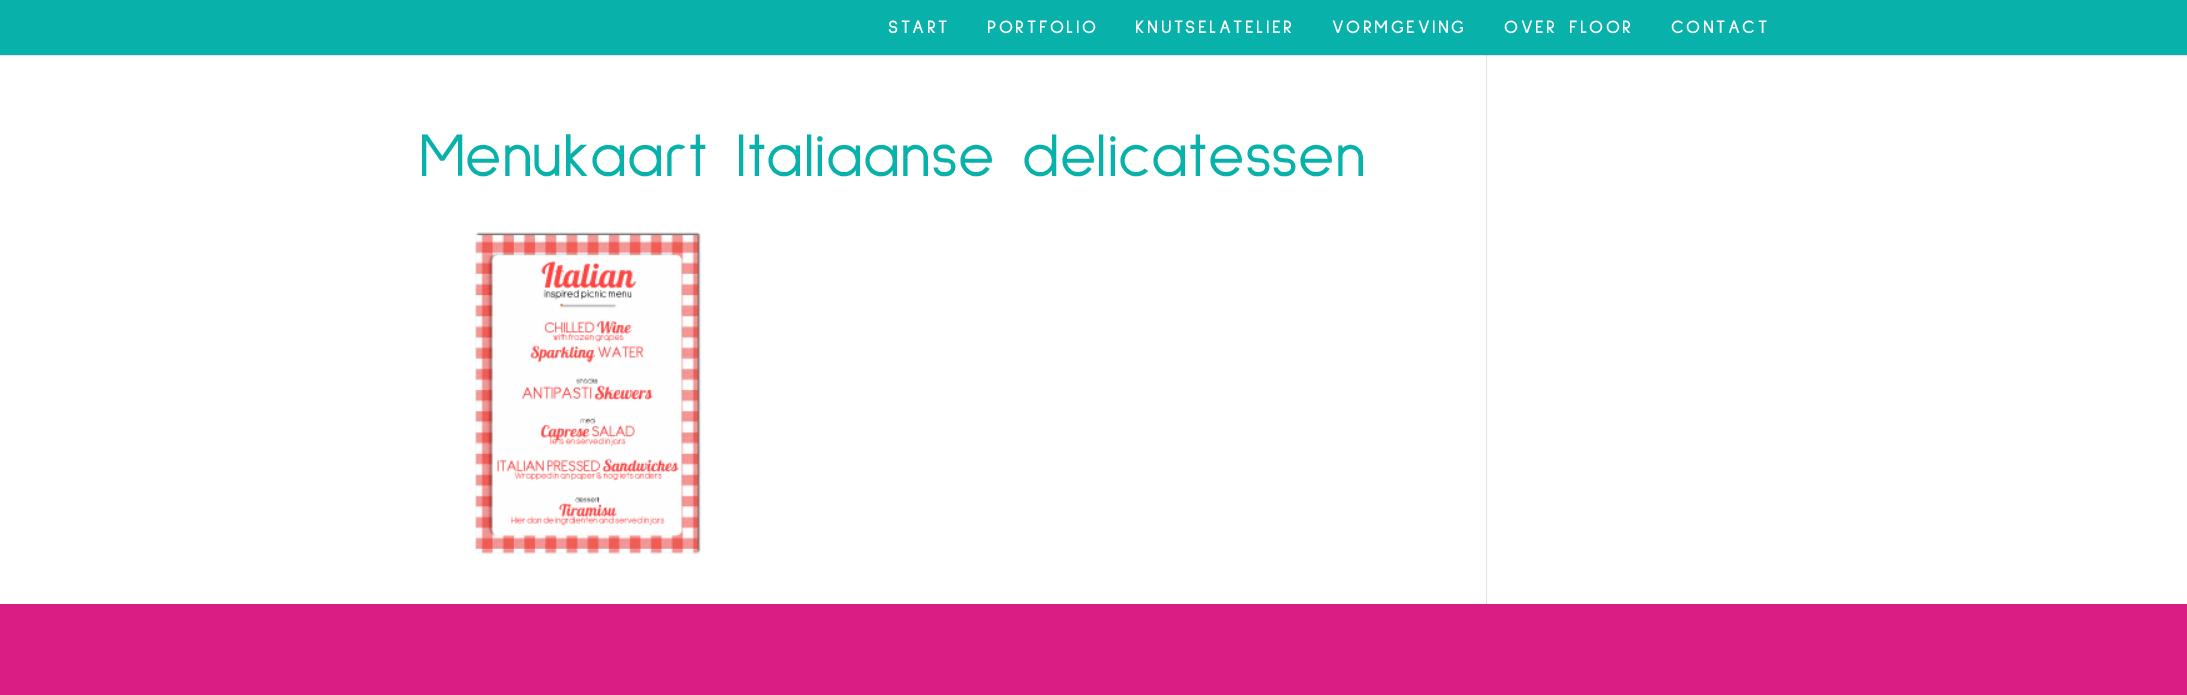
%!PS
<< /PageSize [2187 695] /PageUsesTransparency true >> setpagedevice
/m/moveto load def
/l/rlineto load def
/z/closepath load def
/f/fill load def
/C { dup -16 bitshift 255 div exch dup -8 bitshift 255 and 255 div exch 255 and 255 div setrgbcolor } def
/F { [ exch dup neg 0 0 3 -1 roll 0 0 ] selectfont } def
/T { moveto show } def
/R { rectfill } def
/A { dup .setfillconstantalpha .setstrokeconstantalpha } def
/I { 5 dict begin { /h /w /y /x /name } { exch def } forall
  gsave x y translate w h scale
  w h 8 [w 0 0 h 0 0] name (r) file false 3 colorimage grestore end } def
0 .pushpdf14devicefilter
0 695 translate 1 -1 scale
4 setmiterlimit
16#FFFFFF C
0 0 2187 695 R
16#E2E2E2 C
1486 55 1 549 R
0.1 A
16#000000 C
0 55 m 0 1 l 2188 0 l 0 -55 l 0 54 l z f
1 A
16#08B1AA C
0 0 2187 55 R
/SulphurPoint-Bold 18.75 F
16#FFFFFF C
888 33 m 2.5 0 (START) ashow
987 33 m 2.5 0 (PORTFOLIO) ashow
1135 33 m 2.5 0 (KNUTSELATELIER) ashow
1332 33 m 2.5 0 (VORMGEVING) ashow
1504 33 m 2.5 0 (OVER FLOOR) ashow
1671 33 m 2.5 0 (CONTACT) ashow
/SulphurPoint-Regular 62.5 F
16#08B1AA C
(Menukaart Italiaanse delicatessen) 419 176 T
(1.rgb) 475 232 226 322 I
16#D91D84 C
0 604 2187 91 R
.poppdf14devicefilter showpage
